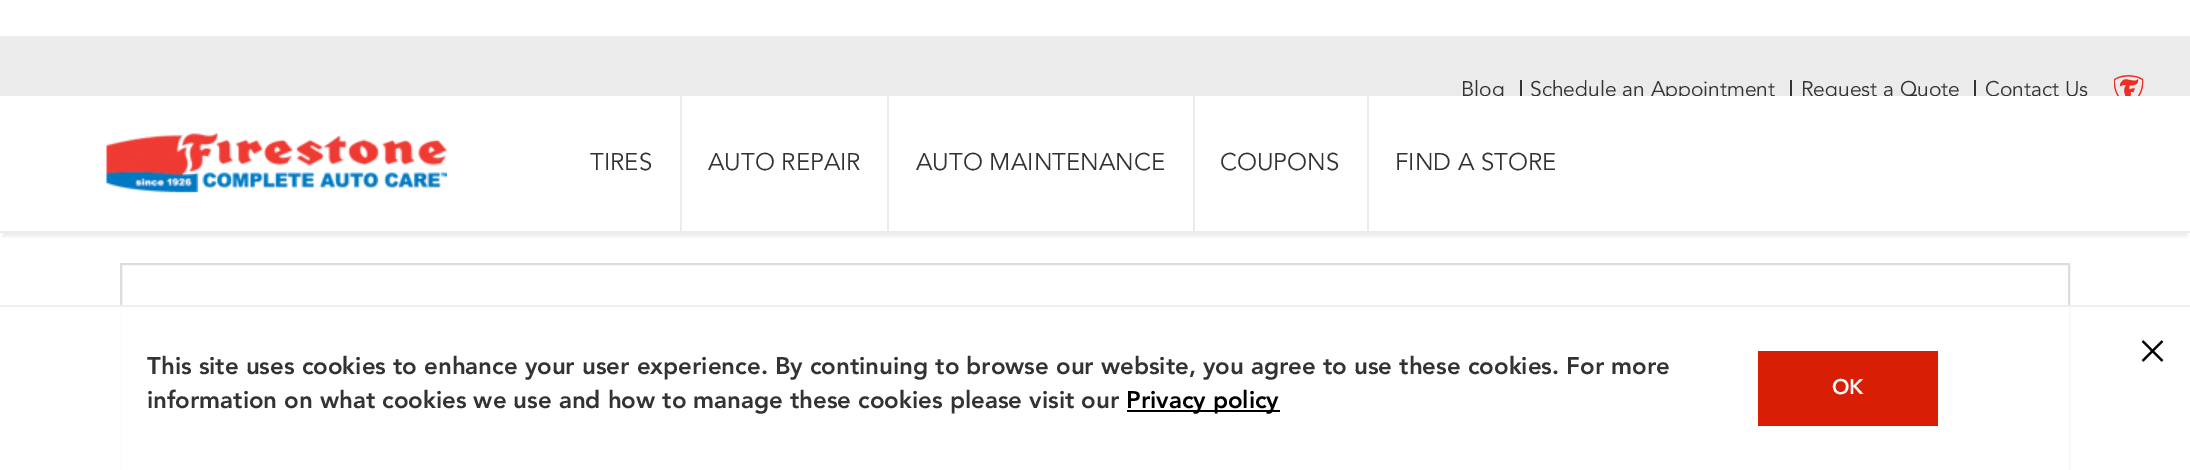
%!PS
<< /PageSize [2190 470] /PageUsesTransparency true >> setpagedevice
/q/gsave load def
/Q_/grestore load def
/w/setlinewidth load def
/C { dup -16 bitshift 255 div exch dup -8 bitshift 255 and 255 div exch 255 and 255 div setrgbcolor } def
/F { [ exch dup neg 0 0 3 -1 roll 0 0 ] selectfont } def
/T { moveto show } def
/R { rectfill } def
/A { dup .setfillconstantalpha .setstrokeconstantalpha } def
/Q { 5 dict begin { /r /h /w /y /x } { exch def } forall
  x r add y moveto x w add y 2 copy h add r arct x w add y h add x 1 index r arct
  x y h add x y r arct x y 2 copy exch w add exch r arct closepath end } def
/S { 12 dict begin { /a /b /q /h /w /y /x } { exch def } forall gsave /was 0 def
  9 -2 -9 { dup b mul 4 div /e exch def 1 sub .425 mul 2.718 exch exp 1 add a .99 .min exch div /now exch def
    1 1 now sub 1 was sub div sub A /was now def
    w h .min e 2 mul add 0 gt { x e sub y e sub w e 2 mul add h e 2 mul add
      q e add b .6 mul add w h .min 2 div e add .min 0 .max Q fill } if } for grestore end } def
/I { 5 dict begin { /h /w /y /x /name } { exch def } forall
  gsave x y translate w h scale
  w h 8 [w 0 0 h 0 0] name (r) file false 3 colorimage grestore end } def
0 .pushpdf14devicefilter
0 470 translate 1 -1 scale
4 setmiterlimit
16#FFFFFF C
0 0 2190 470 R
q
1 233 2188 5 rectclip
16#323232 C
3 45 2184 191 0 2 .1 S
Q_
16#EBEBEB C
0 231 2190 2 R
0 36 2190 60 R
/Avenir-Regular 21 F
16#333333 C
(Blog) 1461 96 T
(Schedule an Appointment) 1530 96 T
1520 80 2 21 R
(Request a Quote) 1801 96 T
1790 80 2 21 R
(Contact Us) 1985 96 T
1974 80 2 21 R
(1.rgb) 2114 75 30 21 I
16#FFFFFF C
1484 96 602 7 R
(2.rgb) 106 133 341 60 I
/Avenir-Regular 24 F
16#333333 C
(TIRES) 590 170 T
16#EBEBEB C
680 96 2 135 R
16#333333 C
(AUTO REPAIR) 708 170 T
16#EBEBEB C
887 96 2 135 R
16#333333 C
(AUTO MAINTENANCE) 916 170 T
16#EBEBEB C
1193 96 2 135 R
16#333333 C
(COUPONS) 1220 170 T
16#EBEBEB C
1367 96 2 135 R
16#333333 C
(FIND A STORE) 1395 170 T
16#DCDCDC C
2 w
121 264 1948 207 rectstroke
0.9 A
16#FFFFFF C
120 307 1950 163 R
1 A
16#EFEFEF C
0 305 2190 2 R
(3.rgb) 2141 340 23 22 I
/Avenir-Black 24 F
16#333333 C
(This site uses cookies to enhance your user experience. By continuing to browse our website, you agree to use these cookies. For more) 147 374 T
(information on what cookies we use and how to manage these cookies please visit our) 147 408 T
16#000000 C
1127 410 153 2 R
(Privacy policy) 1126 408 T
16#D81E05 C
1758 351 180 75 R
/Avenir-Black 21 F
16#FFFFFF C
(OK) 1832 394 T
.poppdf14devicefilter showpage
